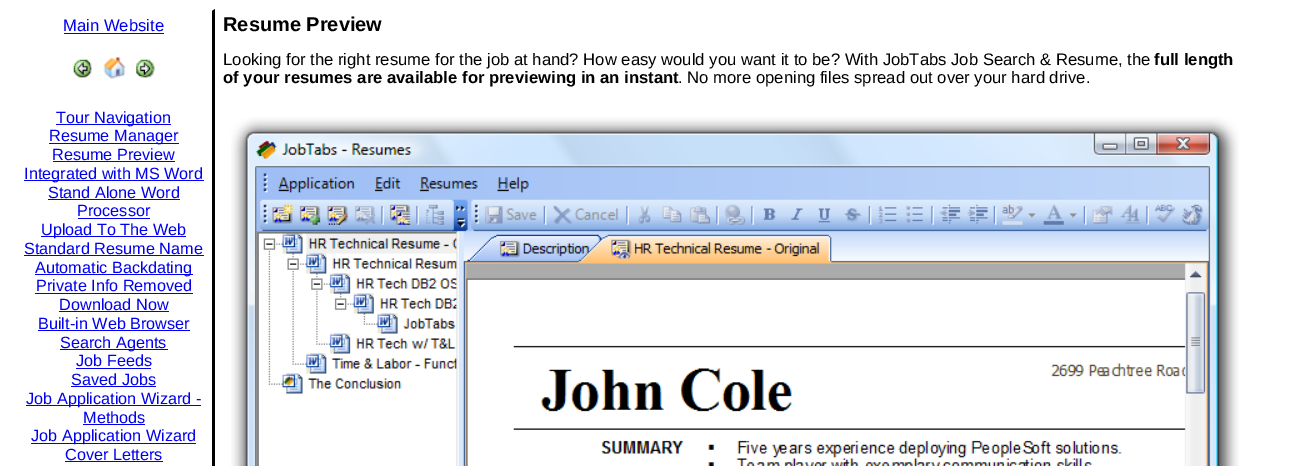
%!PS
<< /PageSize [1310 466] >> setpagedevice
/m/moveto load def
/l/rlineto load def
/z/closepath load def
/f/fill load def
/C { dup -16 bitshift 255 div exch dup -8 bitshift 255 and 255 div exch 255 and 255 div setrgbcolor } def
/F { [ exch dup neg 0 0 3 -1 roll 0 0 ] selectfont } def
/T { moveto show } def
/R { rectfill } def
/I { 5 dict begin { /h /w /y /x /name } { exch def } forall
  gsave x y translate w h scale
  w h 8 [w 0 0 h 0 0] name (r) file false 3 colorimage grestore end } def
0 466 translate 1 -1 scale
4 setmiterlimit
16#FFFFFF C
0 0 1310 466 R
16#000000 C
215 9 m 0 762 l -3 -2 l 0 -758 l z f
/LiberationSans-Regular 16.67 F
16#0000EE C
(Main Website) 63 31 T
64 33 100 1 R
(1.rgb) 73 59 19 19 I
(2.rgb) 103 57 23 22 I
(3.rgb) 136 59 19 19 I
56 124 115 1 R
/LiberationSans-Regular 16.25 F
(Tour Navigation) 56 123 T
49 143 130 1 R
(Resume Manager) 49 141 T
(Resume Preview) 52 160 T
53 161 122 1 R
24 180 180 1 R
(Integrated with MS Word) 24 179 T
(Stand Alone Word) 48 198 T
48 199 132 1 R
(Processor) 77 216 T
78 218 72 1 R
41 236 145 1 R
(Upload To The Web) 41 235 T
(Standard Resume Name) 24 254 T
24 255 180 1 R
35 274 158 1 R
(Automatic Backdating) 35 273 T
(Private Info Removed) 36 291 T
35 293 158 1 R
(Download Now) 59 310 T
59 311 110 1 R
(Built-in Web Browser) 38 329 T
38 330 152 1 R
60 349 108 1 R
(Search Agents) 60 348 T
(Job Feeds) 76 366 T
76 368 75 1 R
(Saved Jobs) 71 385 T
71 386 85 1 R
26 405 175 1 R
(Job Application Wizard -) 26 404 T
(Methods) 83 423 T
83 424 62 1 R
31 443 165 1 R
(Job Application Wizard) 31 441 T
(Cover Letters) 65 460 T
65 461 98 1 R
/LiberationSans-Bold 20 F
16#000000 C
(Resume Preview) 223 31 T
/LiberationSans-Regular 16.67 F
(Looking for the right resume for the job at hand? How easy would you want it to be? With JobTabs Job Search & Resume, the) 223 65 T
/LiberationSans-Bold 16.67 F
(full length) 1154 65 T
(of your resumes are available for previewing in an instant) 223 83 T
/LiberationSans-Regular 16.67 F
(. No more opening files spread out over your hard drive.) 678 83 T
(4.rgb) 231 117 1008 349 I
showpage
